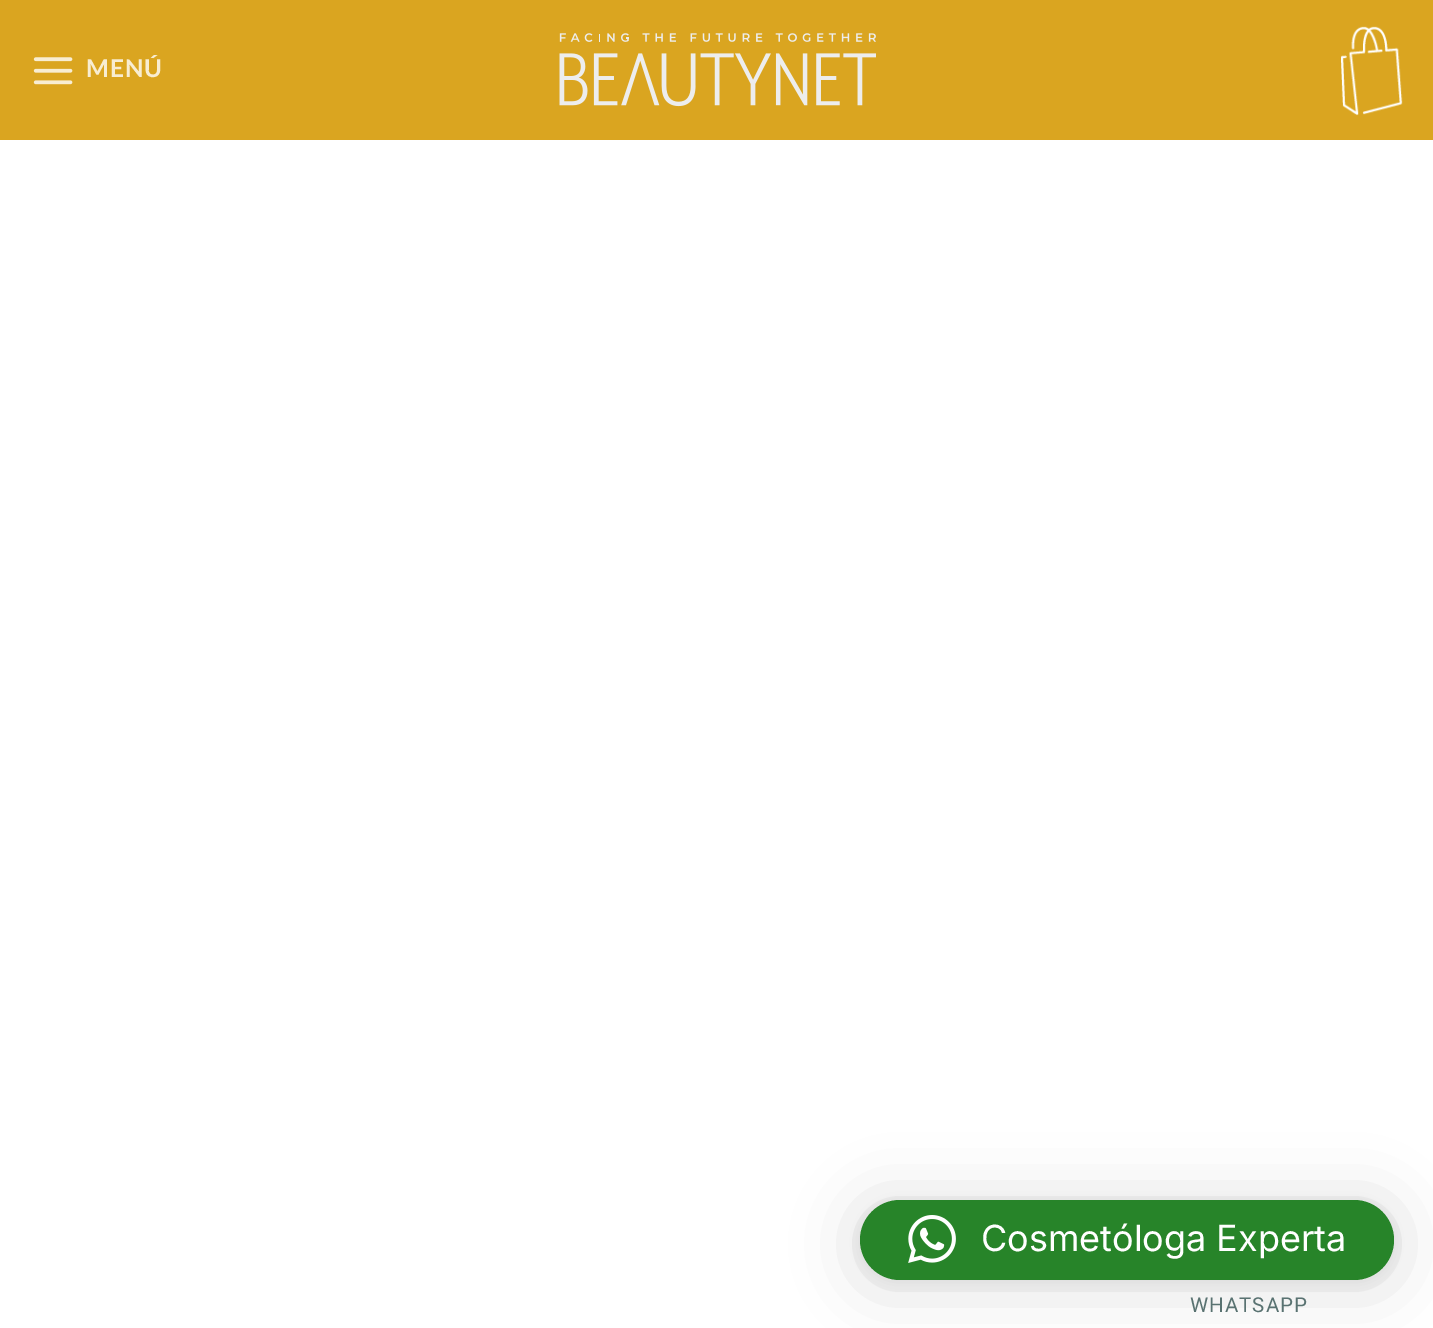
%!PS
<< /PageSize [1433 1328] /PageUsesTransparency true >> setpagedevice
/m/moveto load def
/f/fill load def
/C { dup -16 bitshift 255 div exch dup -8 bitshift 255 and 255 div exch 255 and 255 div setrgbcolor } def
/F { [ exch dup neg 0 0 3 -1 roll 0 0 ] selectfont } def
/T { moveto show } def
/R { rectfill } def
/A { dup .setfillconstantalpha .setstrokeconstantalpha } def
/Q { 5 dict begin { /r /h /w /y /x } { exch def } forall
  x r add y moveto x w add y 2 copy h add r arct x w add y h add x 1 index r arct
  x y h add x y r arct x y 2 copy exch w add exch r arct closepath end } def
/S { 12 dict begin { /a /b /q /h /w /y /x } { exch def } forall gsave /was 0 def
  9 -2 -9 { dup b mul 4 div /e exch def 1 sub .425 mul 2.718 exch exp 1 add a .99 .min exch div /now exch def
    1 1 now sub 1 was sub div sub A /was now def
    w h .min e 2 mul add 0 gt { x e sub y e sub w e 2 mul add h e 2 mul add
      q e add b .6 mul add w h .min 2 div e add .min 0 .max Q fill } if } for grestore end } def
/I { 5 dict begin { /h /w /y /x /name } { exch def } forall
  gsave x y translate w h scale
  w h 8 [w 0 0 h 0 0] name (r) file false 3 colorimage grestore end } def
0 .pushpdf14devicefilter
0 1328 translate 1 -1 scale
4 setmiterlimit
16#FFFFFF C
0 0 1433 1328 R
16#DAA520 C
0 0 1433 140 R
(1.rgb) 33 57 40 28 I
/Lato-Bold 24.5 F
16#F8EDD2 C
86 77 m 1 0 (MENÚ) ashow
(2.rgb) 559 33 317 74 I
(3.rgb) 1341 26 62 90 I
16#000000 C
860 1204 534 80 40 32 .16 S
860 1202 534 80 40 6 .06 S
16#278429 C
860 1200 534 80 40 Q f
(4.rgb) 908 1215 48 48 I
/Inter-Regular 36 F
16#FFFFFF C
(Cosmetóloga Experta) 981 1251 T
/Roboto-Regular 20.5 F
16#597271 C
1190 1312 m 1 0 (WHATSAPP) ashow
.poppdf14devicefilter showpage
